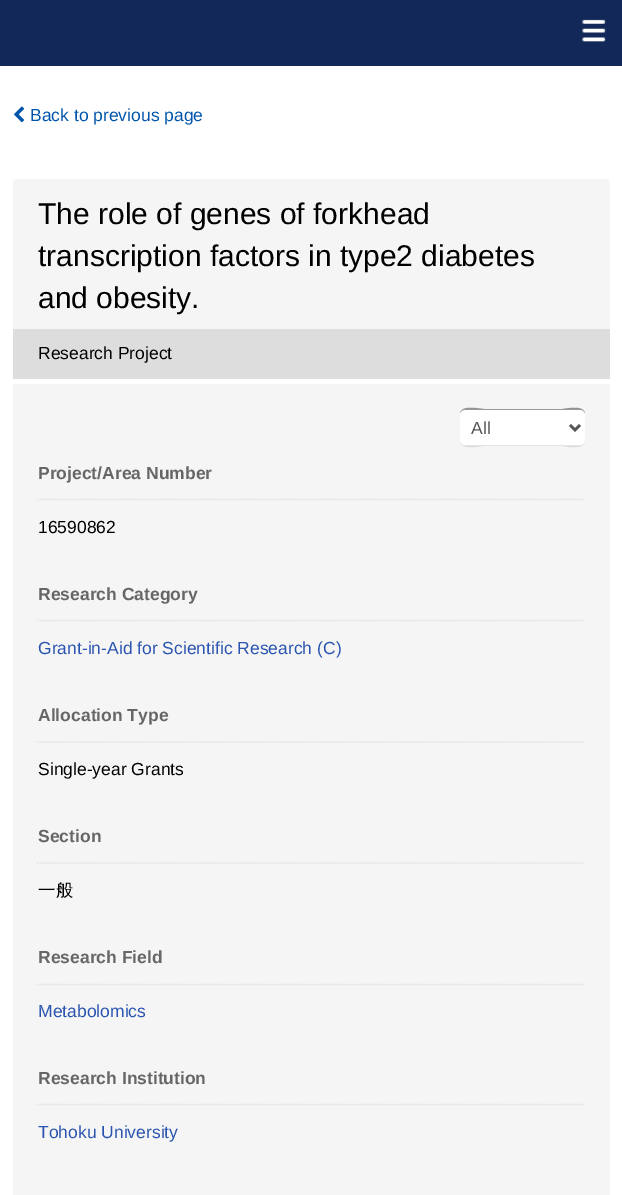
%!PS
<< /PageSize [622 1195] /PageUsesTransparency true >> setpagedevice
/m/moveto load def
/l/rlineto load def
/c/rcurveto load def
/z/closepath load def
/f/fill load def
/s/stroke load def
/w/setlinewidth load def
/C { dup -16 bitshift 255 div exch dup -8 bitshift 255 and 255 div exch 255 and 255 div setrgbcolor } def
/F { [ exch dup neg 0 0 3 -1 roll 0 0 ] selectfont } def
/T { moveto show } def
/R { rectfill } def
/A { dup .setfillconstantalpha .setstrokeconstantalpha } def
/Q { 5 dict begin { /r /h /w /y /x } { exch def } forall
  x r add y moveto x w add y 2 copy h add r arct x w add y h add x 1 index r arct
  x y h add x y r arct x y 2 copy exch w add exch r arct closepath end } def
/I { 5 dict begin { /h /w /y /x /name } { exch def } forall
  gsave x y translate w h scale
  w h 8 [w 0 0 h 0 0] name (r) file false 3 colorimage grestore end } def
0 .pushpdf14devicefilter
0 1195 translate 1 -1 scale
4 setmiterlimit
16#FFFFFF C
0 0 622 1195 R
16#122858 C
0 0 622 66 R
(1.rgb) 582 19 24 23 I
(2.rgb) 14 106 11 17 I
/LiberationSans-Regular 17.5 F
16#0055AA C
(Back to previous page) 30 121 T
16#F5F5F5 C
13 179 597 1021 5 Q f
/LiberationSans-Regular 30 F
16#000000 C
(The role of genes of forkhead) 38 224 T
(transcription factors in type2 diabetes) 38 266 T
(and obesity.) 38 308 T
16#DDDDDD C
13 329 597 50 R
/LiberationSans-Regular 17.5 F
16#000000 C
(Research Project) 38 359 T
16#FFFFFF C
13 379 597 5 R
460 409 125 37 4 Q f
0.1 A
16#000000 C
460 441 m 0 10 21 5 24 5 c 78 0 l 2 0 23 5 23 -5 c 0 2 -2 4 -4 4 c -117 0 l -2 0 -4 -2 -4 -4 c z f
0.4 A
464 410 m 117 0 l 2 0 4 2 4 4 c 0 -10 -21 -5 -23 -5 c -78 0 l -3 0 -24 -5 -24 5 c 0 -2 2 -4 4 -4 c z f
1 A
16#555555 C
2.5 w
570 425 m 5 5 l 5 -5 l s
(All) 471 434 T
16#DDDDDD C
1.2 w
[1.25 1.25] 0 setdash
37.5 499.5 m 547.5 0 l s
/LiberationSans-Bold 17.5 F
16#666666 C
(Project/Area Number) 38 479 T
/LiberationSans-Regular 17.5 F
16#000000 C
(16590862) 38 533 T
16#DDDDDD C
37.5 620.5 m 547.5 0 l s
/LiberationSans-Bold 17.5 F
16#666666 C
(Research Category) 38 600 T
/LiberationSans-Regular 17.5 F
16#2954AF C
(Grant-in-Aid for Scientific Research \(C\)) 38 654 T
16#DDDDDD C
37.5 742 m 547.5 0 l s
/LiberationSans-Bold 17.5 F
16#666666 C
(Allocation Type) 38 721 T
/LiberationSans-Regular 17.5 F
16#000000 C
(Single-year Grants) 38 775 T
16#DDDDDD C
37.5 863 m 547.5 0 l s
/LiberationSans-Bold 17.5 F
16#666666 C
(Section) 38 842 T
/WenQuanYiZenHei-Medium 17.5 F
16#000000 C
(一般) 38 896 T
16#DDDDDD C
37.5 984.5 m 547.5 0 l s
/LiberationSans-Bold 17.5 F
16#666666 C
(Research Field) 38 963 T
/LiberationSans-Regular 17.5 F
16#2954AF C
(Metabolomics) 38 1017 T
16#DDDDDD C
37.5 1104.5 m 547.5 0 l s
/LiberationSans-Bold 17.5 F
16#666666 C
(Research Institution) 38 1084 T
/LiberationSans-Regular 17.5 F
16#2954AF C
(Tohoku University) 38 1138 T
.poppdf14devicefilter showpage
